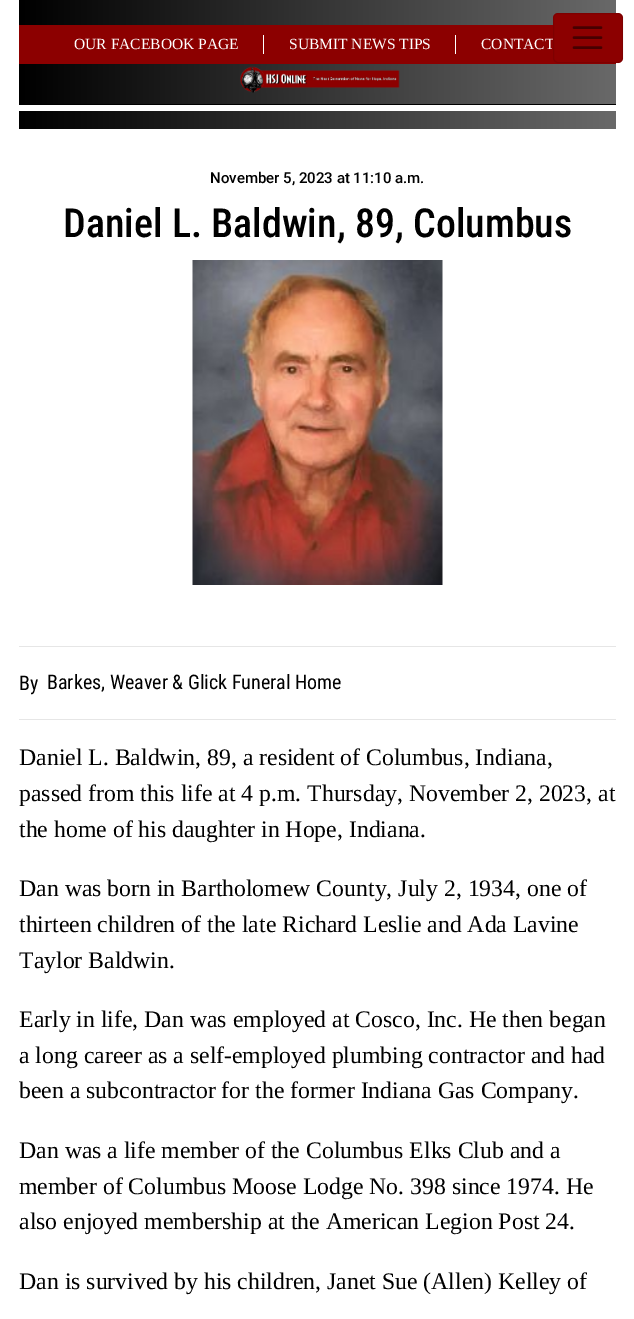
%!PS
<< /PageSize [634 1319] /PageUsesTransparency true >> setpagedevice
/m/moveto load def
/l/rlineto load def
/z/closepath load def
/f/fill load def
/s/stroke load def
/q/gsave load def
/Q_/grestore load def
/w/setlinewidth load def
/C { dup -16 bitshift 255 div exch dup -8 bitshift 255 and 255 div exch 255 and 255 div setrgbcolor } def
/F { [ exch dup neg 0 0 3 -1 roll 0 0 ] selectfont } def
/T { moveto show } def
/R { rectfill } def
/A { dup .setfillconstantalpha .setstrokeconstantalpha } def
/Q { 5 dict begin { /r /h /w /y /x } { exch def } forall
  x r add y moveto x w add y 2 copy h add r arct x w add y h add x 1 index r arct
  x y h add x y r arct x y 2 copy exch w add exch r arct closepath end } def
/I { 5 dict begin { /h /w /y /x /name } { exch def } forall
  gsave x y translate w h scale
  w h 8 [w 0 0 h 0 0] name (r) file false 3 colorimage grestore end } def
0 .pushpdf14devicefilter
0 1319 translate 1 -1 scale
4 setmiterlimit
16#FFFFFF C
0 0 634 1319 R
q 19 0 m 597 0 l 0 25 l -597 0 l z clip newpath
<< /ShadingType 2 /ColorSpace /DeviceRGB /Coords [19 15 616 15] /Extend [true true] /Function << /FunctionType 2 /Domain [0 1] /C0 [0 0 0] /C1 [.412 .412 .412] /N 1 >> >> shfill Q_
16#8C0000 C
19 25 597 39 R
/LiberationSerif-Regular 15.5 F
16#FFFFFF C
(CONTACT) 481 49 T
16#8C0000 C
553 13 70 50 5 Q f
0.1 A
16#000000 C
553.5 13.5 69 49 4.5 Q s
1 A
16#460000 C
2.5 w
1 setlinecap
574 27.5 m 27 0 l 574 37.5 m 27 0 l 574 47.5 m 27 0 l s
q 19 64 m 597 0 l 0 40 l -597 0 l z clip newpath
<< /ShadingType 2 /ColorSpace /DeviceRGB /Coords [19 84 616 84] /Extend [true true] /Function << /FunctionType 2 /Domain [0 1] /C0 [0 0 0] /C1 [.412 .412 .412] /N 1 >> >> shfill Q_
16#000000 C
19 104 597 1 R
(1.rgb) 240 66 160 27 I
16#FFFFFF C
263 35 1 19 R
(OUR FACEBOOK PAGE) 74 49 T
455 35 1 19 R
(SUBMIT NEWS TIPS) 289 49 T
q 19 111 m 597 0 l 0 18 l -597 0 l z clip newpath
<< /ShadingType 2 /ColorSpace /DeviceRGB /Coords [19 119 616 119] /Extend [true true] /Function << /FunctionType 2 /Domain [0 1] /C0 [0 0 0] /C1 [.412 .412 .412] /N 1 >> >> shfill Q_
/Roboto-Medium 15 F
16#000000 C
(November 5, 2023 at 11:10 a.m.) 210 183 T
/RobotoCondensed-Medium 40 F
(Daniel L. Baldwin, 89, Columbus) 63 237 T
(2.rgb) 192 260 251 325 I
16#E6E6E6 C
19 646 597 1 R
/RobotoCondensed-Regular 20 F
16#000000 C
(By) 19 690 T
(Barkes, Weaver & Glick Funeral Home) 47 689 T
16#E6E6E6 C
19 719 597 1 R
/LiberationSerif-Regular 23.75 F
16#000000 C
(Daniel L. Baldwin, 89, a resident of Columbus, Indiana,) 19 765 T
(passed from this life at 4 p.m. Thursday, November 2, 2023, at) 19 801 T
(the home of his daughter in Hope, Indiana.) 19 837 T
(Dan was born in Bartholomew County, July 2, 1934, one of) 19 896 T
(thirteen children of the late Richard Leslie and Ada Lavine) 19 932 T
(Taylor Baldwin.) 19 968 T
(Early in life, Dan was employed at Cosco, Inc. He then began) 19 1027 T
(a long career as a self-employed plumbing contractor and had) 19 1063 T
(been a subcontractor for the former Indiana Gas Company.) 19 1098 T
(Dan was a life member of the Columbus Elks Club and a) 19 1158 T
(member of Columbus Moose Lodge No. 398 since 1974. He) 19 1194 T
(also enjoyed membership at the American Legion Post 24.) 19 1229 T
(Dan is survived by his children, Janet Sue \(Allen\) Kelley of) 19 1289 T
.poppdf14devicefilter showpage
